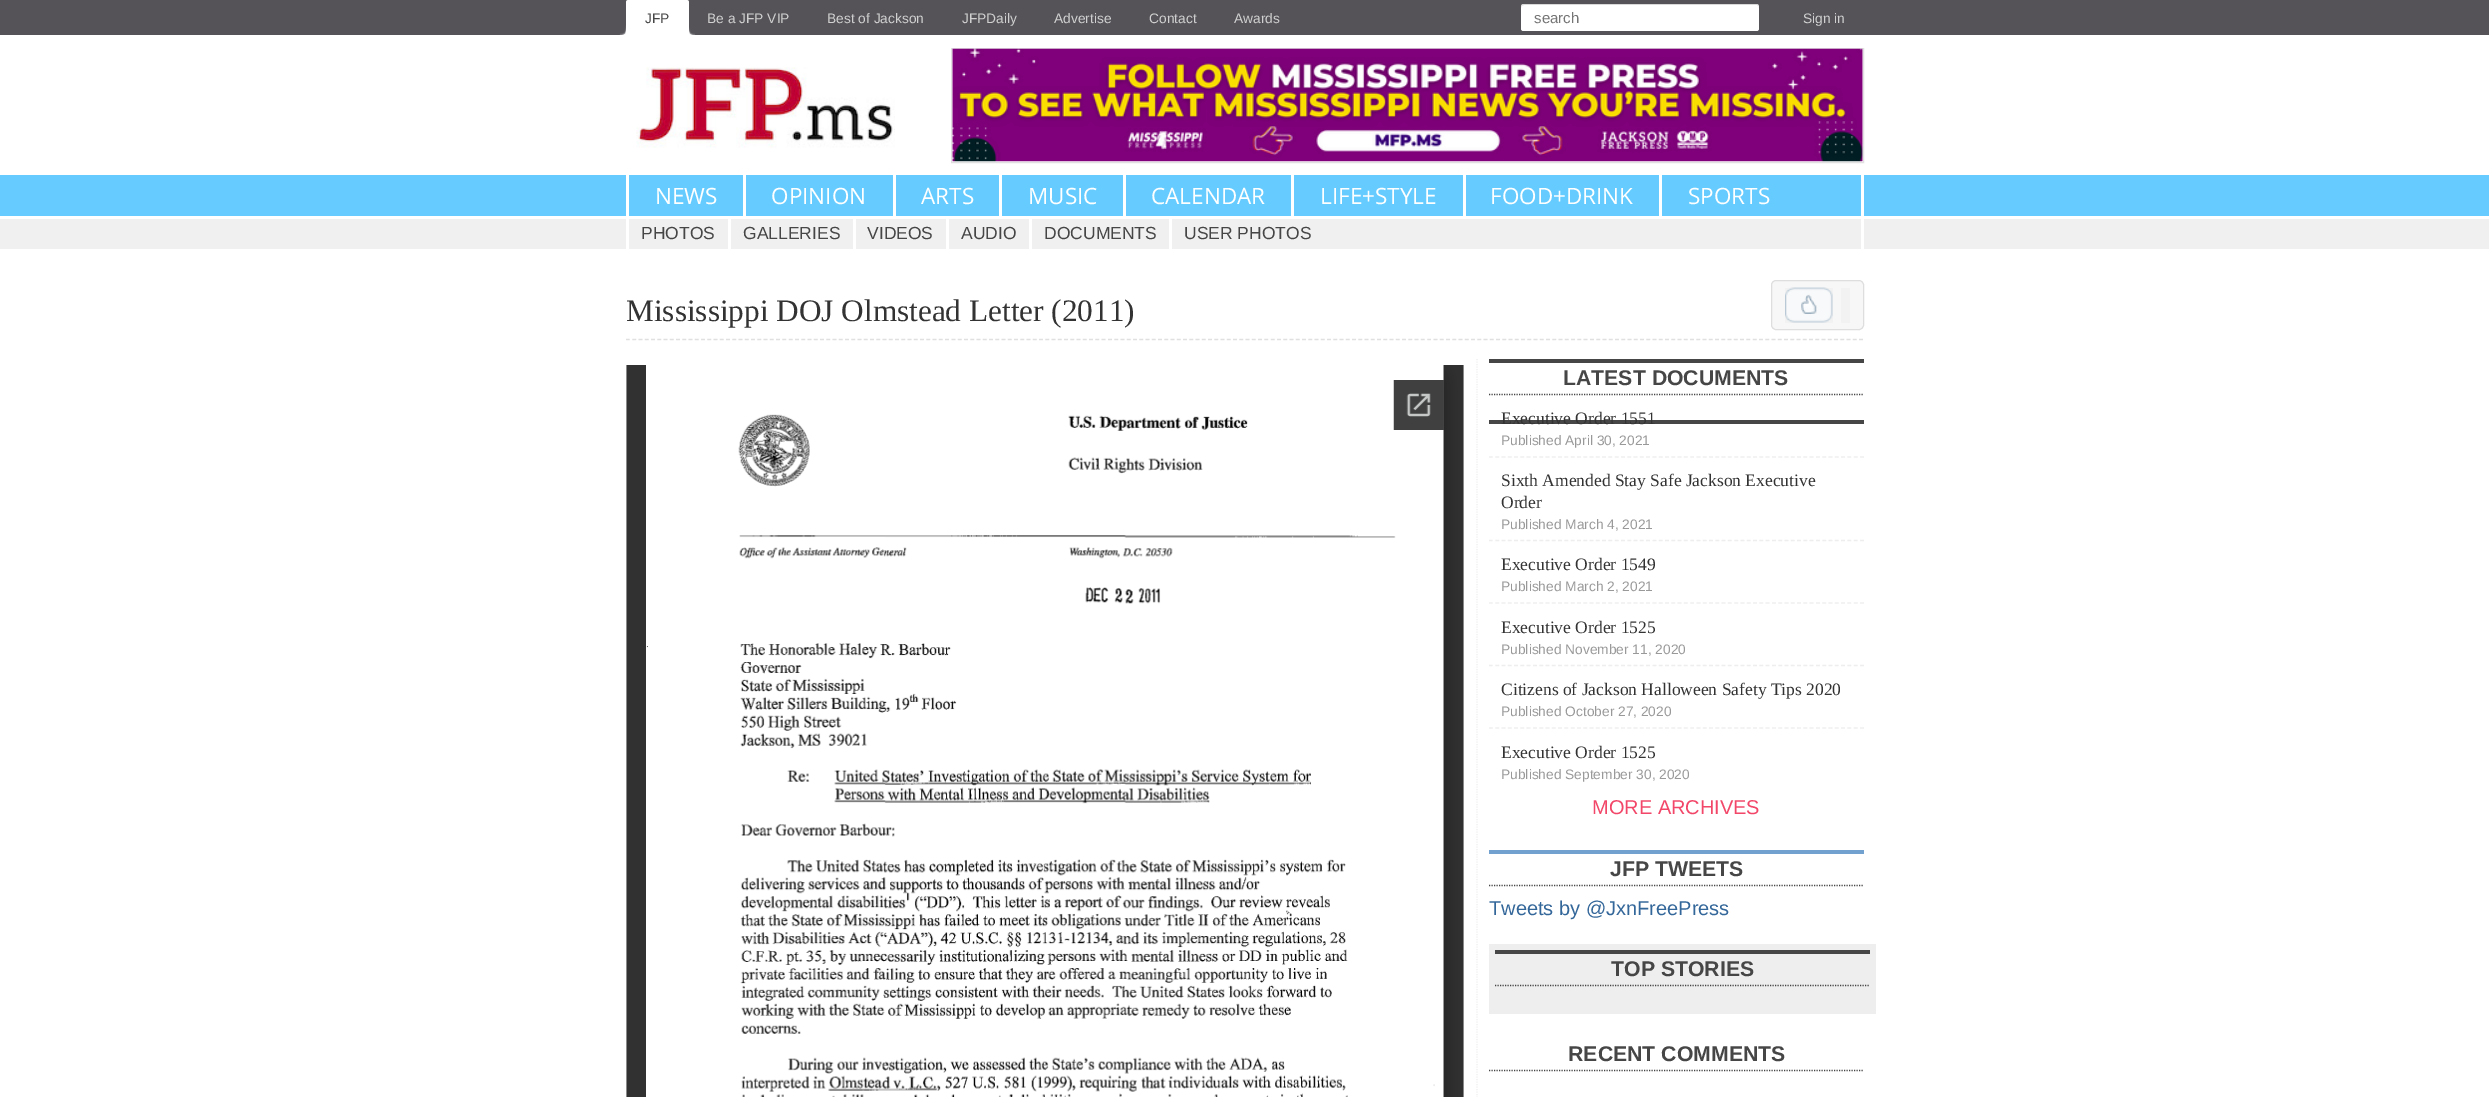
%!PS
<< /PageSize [2489 1097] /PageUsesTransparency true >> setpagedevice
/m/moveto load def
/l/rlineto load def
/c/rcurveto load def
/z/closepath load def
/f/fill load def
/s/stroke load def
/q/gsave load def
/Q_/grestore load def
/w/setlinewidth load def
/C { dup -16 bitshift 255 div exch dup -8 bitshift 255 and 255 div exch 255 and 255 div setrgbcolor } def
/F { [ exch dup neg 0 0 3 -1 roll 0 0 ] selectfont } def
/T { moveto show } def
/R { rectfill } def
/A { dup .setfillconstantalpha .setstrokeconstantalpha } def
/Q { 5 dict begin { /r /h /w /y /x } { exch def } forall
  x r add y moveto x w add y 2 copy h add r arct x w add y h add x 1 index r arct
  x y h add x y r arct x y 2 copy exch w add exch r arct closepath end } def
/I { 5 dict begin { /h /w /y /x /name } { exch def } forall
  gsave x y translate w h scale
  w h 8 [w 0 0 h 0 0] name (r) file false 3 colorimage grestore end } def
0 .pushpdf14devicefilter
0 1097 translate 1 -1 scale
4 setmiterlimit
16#FFFFFF C
0 0 2489 1097 R
16#555358 C
0 0 2489 35 R
16#FFFFFF C
628.5 0 m 58 0 l 1.5 0 2.5 1 2.5 2.5 c 0 32.5 l -63 0 l 0 -32.5 l 0 -1.5 1 -2.5 2.5 -2.5 c z f
/LiberationSans-Regular 13.75 F
16#464646 C
(JFP) 645 23 T
(1.rgb) 619 25 7 10 I
(2.rgb) 689 27 7 8 I
16#D0D0D0 C
(Be a JFP VIP) 707 23 T
(Best of Jackson) 827 23 T
(JFPDaily) 962 23 T
(Advertise) 1054 23 T
(Contact) 1149 23 T
(Awards) 1234 23 T
16#FFFFFF C
1521 4 238 27 2.5 Q f
0.15 A
16#000000 C
1524 5 m 233 0 l 2 1 l 0 2 l 0 -2 0 -4 -3 -4 c -232 0 l -3 0 -3 2 -3 4 c 0 -2 1 -3 3 -3 c z f
/LiberationSans-Regular 15 F
1 A
16#757575 C
(search) 1534 23 T
/LiberationSans-Regular 13.75 F
16#D0D0D0 C
(Sign in) 1803 23 T
(3.rgb) 636 67 259 81 I
16#E0E0E0 C
951.5 48.5 912 114 rectstroke
(4.rgb) 952 48 911 114 I
16#66CCFF C
0 175 2489 41 R
16#FFFFFF C
1861 175 3 41 R
626 175 3 41 R
/OpenSans-Regular 22.5 F
(NEWS) 655 204 T
743 175 3 41 R
(OPINION) 771 204 T
893 175 3 41 R
(ARTS) 921 204 T
999 175 3 41 R
(MUSIC) 1028 204 T
1123 175 3 41 R
(CALENDAR) 1151 204 T
1291 175 3 41 R
(LIFE+STYLE) 1320 204 T
1463 175 3 41 R
(FOOD+DRINK) 1490 204 T
1659 175 3 41 R
(SPORTS) 1688 204 T
16#F0F0F0 C
0 219 2489 30 R
16#FFFFFF C
1861 219 3 30 R
626 219 3 30 R
/LiberationSans-Regular 17.5 F
16#464646 C
(PHOTOS) 641 239 T
16#FFFFFF C
728 219 3 30 R
16#464646 C
(GALLERIES) 743 239 T
16#FFFFFF C
853 219 3 30 R
16#464646 C
(VIDEOS) 867 239 T
16#FFFFFF C
946 219 3 30 R
16#464646 C
(AUDIO) 961 239 T
16#FFFFFF C
1029 219 3 30 R
16#464646 C
(DOCUMENTS) 1044 239 T
16#FFFFFF C
1169 219 3 30 R
16#464646 C
(USER PHOTOS) 1184 239 T
16#E0E0E0 C
1.2 w
[3.75 2.51] 0 setdash
626 339.5 m 1238 0 l s
/LiberationSerif-Regular 31.25 F
16#333333 C
(Mississippi DOJ Olmstead Letter \(2011\)) 626 321 T
16#F7F7F7 C
1771.5 280.5 92 49 4.5 Q q f Q_
16#DEDEDE C
1 w
[] 0 setdash
s
16#F2F2F2 C
1785 288 48 35 R
1841 288 9 35 R
(5.rgb) 1785 287 48 36 I
(6.rgb) 626 365 838 732 I
16#F0F0F0 C
1.2 w
[1.25 1.25] 0 setdash
1477 359 m 0 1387 l s
16#464646 C
1489 359 375 4 R
1489 394.5 m 375 0 l s
/LiberationSans-Bold 21.25 F
(LATEST DOCUMENTS) 1563 385 T
16#EEEEEE C
[3.75 2.54] 0 setdash
1489 457 m 375 0 l s
16#464646 C
1489 420 375 4 R
/LiberationSerif-Regular 17.5 F
16#333333 C
(Executive Order 1551) 1501 424 T
/LiberationSans-Regular 13.75 F
16#999999 C
(Published April 30, 2021) 1501 445 T
16#EEEEEE C
1489 540.5 m 375 0 l s
/LiberationSerif-Regular 17.5 F
16#333333 C
(Sixth Amended Stay Safe Jackson Executive) 1501 486 T
(Order) 1501 508 T
/LiberationSans-Regular 13.75 F
16#999999 C
(Published March 4, 2021) 1501 529 T
16#EEEEEE C
1489 603 m 375 0 l s
/LiberationSerif-Regular 17.5 F
16#333333 C
(Executive Order 1549) 1501 570 T
/LiberationSans-Regular 13.75 F
16#999999 C
(Published March 2, 2021) 1501 591 T
16#EEEEEE C
1489 665.5 m 375 0 l s
/LiberationSerif-Regular 17.5 F
16#333333 C
(Executive Order 1525) 1501 633 T
/LiberationSans-Regular 13.75 F
16#999999 C
(Published November 11, 2020) 1501 654 T
16#EEEEEE C
1489 728 m 375 0 l s
/LiberationSerif-Regular 17.5 F
16#333333 C
(Citizens of Jackson Halloween Safety Tips 2020) 1501 695 T
/LiberationSans-Regular 13.75 F
16#999999 C
(Published October 27, 2020) 1501 716 T
/LiberationSerif-Regular 17.5 F
16#333333 C
(Executive Order 1525) 1501 758 T
/LiberationSans-Regular 13.75 F
16#999999 C
(Published September 30, 2020) 1501 779 T
/LiberationSans-Regular 20 F
16#F24769 C
(MORE ARCHIVES) 1592 814 T
16#72A1D0 C
1489 850 375 4 R
16#464646 C
[1.25 1.25] 0 setdash
1489 885.5 m 375 0 l s
/LiberationSans-Bold 21.25 F
(JFP TWEETS) 1610 876 T
/LiberationSans-Regular 20 F
16#336699 C
(Tweets by @JxnFreePress) 1489 915 T
16#EEEEEE C
1489 944 387 70 R
16#464646 C
1495 950 375 4 R
1495 985.5 m 375 0 l s
/LiberationSans-Bold 21.25 F
(TOP STORIES) 1611 976 T
1489 1070.5 m 375 0 l s
(RECENT COMMENTS) 1568 1061 T
.poppdf14devicefilter showpage
